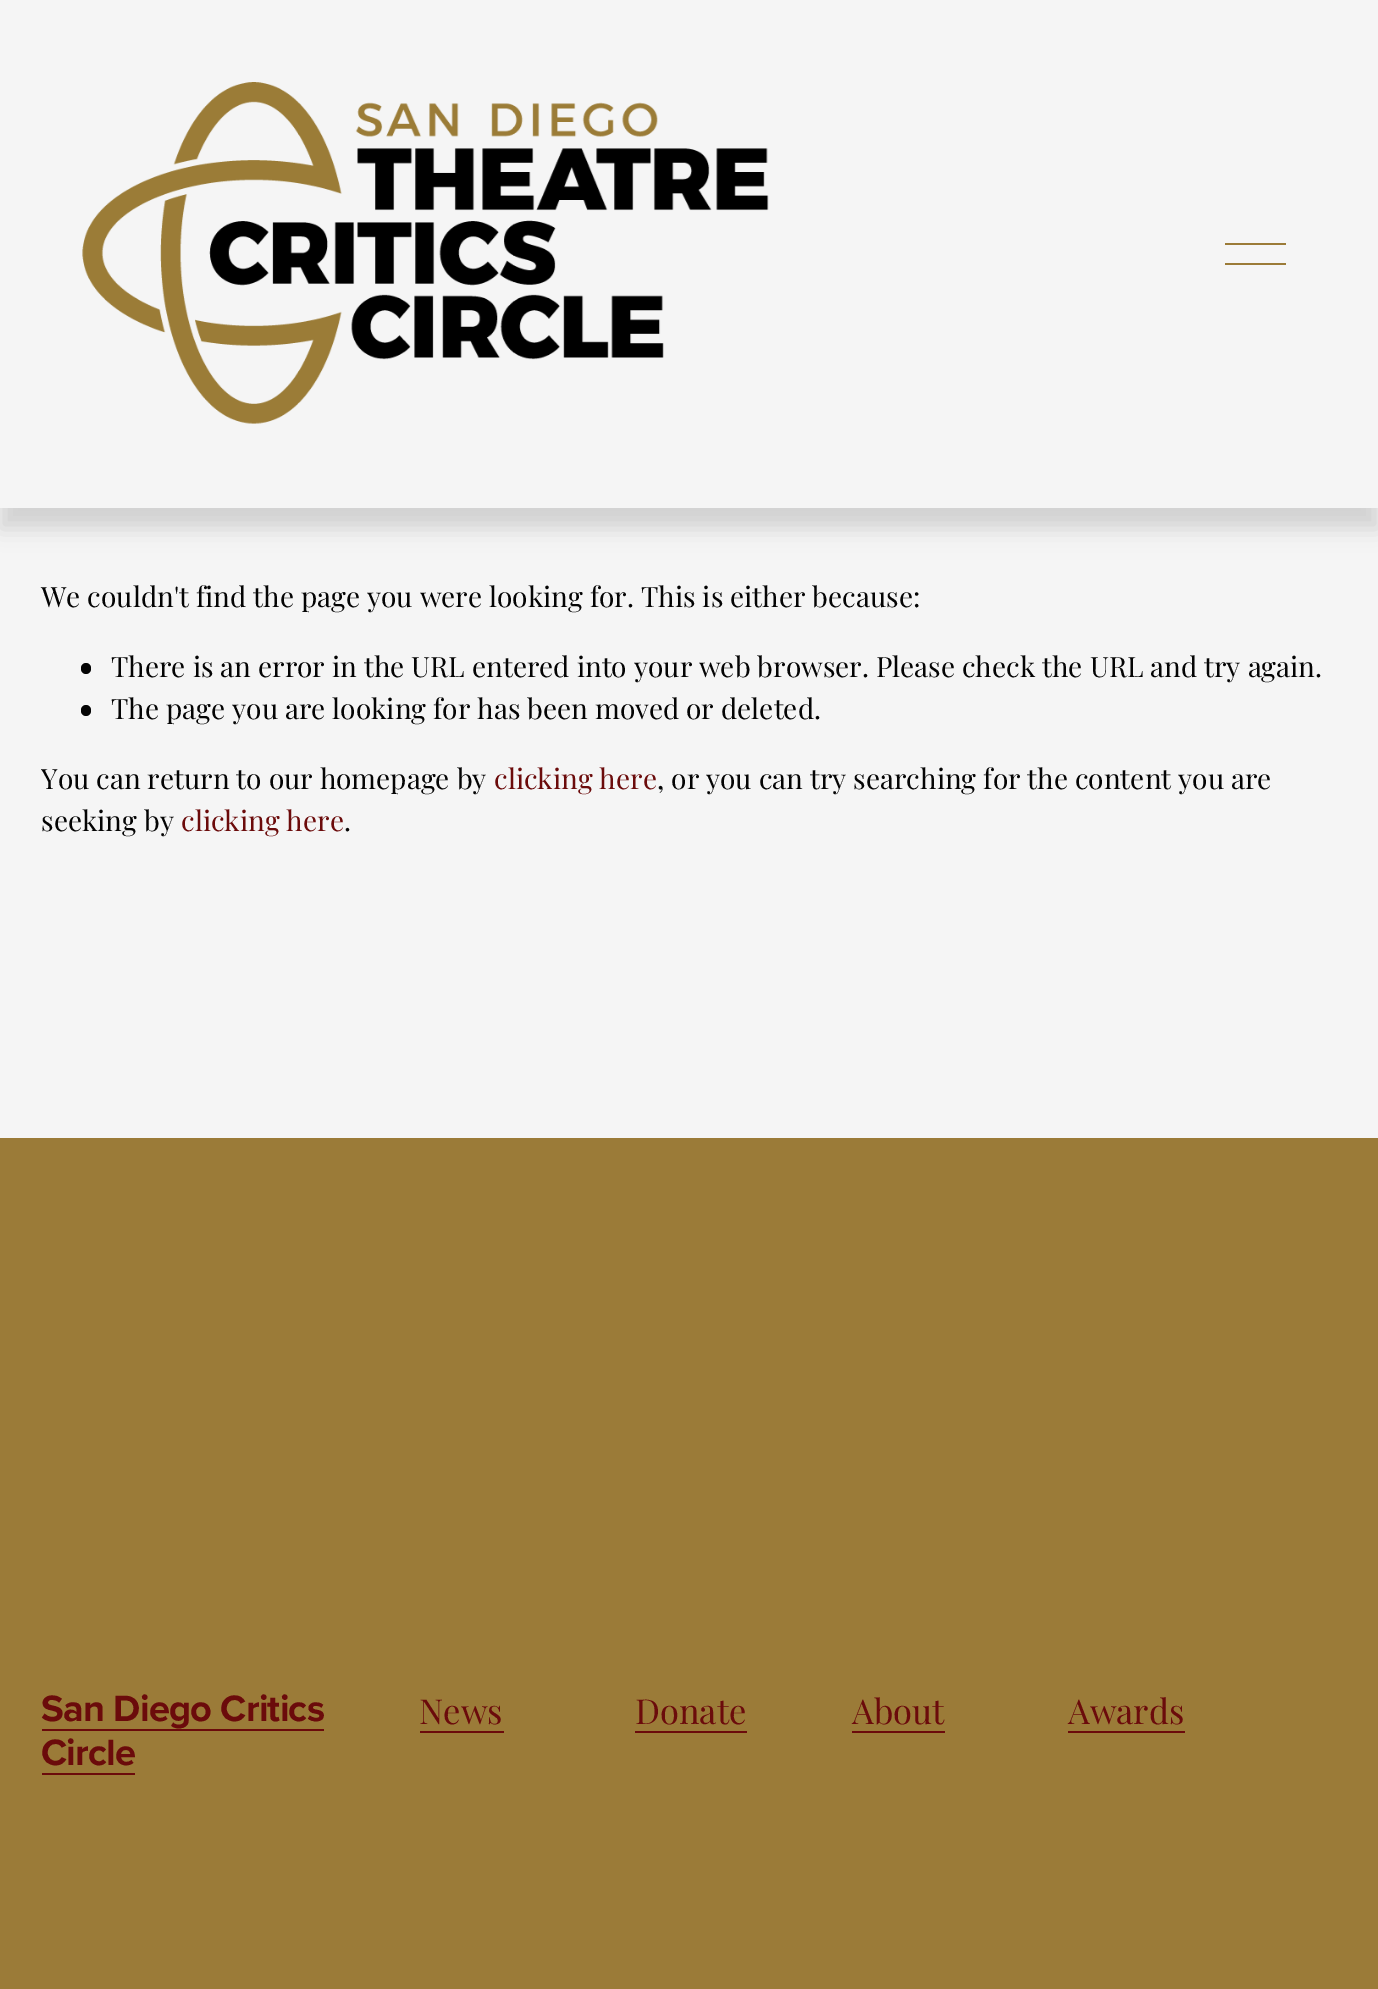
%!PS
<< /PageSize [1378 1989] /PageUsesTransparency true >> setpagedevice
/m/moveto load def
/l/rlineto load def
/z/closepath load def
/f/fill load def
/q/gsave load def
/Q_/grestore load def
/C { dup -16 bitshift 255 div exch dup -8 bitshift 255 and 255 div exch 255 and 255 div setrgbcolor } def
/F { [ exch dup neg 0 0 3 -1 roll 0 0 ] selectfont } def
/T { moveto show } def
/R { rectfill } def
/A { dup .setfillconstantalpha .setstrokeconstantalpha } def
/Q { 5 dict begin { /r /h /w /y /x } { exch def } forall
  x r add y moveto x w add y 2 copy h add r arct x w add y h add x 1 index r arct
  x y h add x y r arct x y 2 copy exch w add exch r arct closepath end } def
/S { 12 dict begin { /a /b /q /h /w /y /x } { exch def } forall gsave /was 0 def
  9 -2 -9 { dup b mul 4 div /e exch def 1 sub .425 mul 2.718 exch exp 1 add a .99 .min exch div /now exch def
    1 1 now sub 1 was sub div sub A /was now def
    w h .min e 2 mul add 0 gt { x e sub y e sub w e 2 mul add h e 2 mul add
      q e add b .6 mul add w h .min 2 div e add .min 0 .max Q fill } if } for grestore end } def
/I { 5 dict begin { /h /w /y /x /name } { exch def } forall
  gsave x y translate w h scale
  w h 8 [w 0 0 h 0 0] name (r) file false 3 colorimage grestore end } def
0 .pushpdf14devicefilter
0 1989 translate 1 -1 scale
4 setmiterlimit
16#F5F5F5 C
0 0 1378 1989 R
q
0 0 m 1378 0 l 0 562 l -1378 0 l z 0 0 m 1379 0 l 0 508 l -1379 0 l z eoclip newpath
16#D1D1D1 C
0 21 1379 508 0 10.5 1 S
Q_
(1.rgb) 82 82 687 342 I
16#9B7B38 C
1225 243 61 2 R
1225 263 61 2 R
/PlayfairDisplay-Regular 28 F
16#040404 C
(We couldn't find the page you were looking for. This is either because:) 41 607 T
81 663 10 11 5 Q f
(There is an error in the URL entered into your web browser. Please check the URL and try again.) 111 677 T
81 705 10 11 5 Q f
(The page you are looking for has been moved or deleted.) 111 719 T
(You can return to our homepage by) 41 789 T
16#6B0B0B C
(clicking here) 494 789 T
16#040404 C
(, or you can try searching for the content you are) 657 789 T
(seeking by) 41 831 T
16#6B0B0B C
(clicking here) 181 831 T
16#040404 C
(.) 344 831 T
16#9B7B38 C
0 1138 1378 851 R
/ProximaNova-Bold 38 F
16#6B0B0B C
41 1721 m -.75 0 (San Diego Critics) ashow
42 1729 282 2 R
41 1765 m -.75 0 (Circle) ashow
42 1773 93 2 R
/PlayfairDisplay-Regular 34.5 F
(News) 419 1724 T
420 1731 84 2 R
(Donate) 635 1724 T
635 1731 112 2 R
(About) 852 1724 T
852 1731 93 2 R
(Awards) 1068 1724 T
1068 1731 117 2 R
.poppdf14devicefilter showpage
